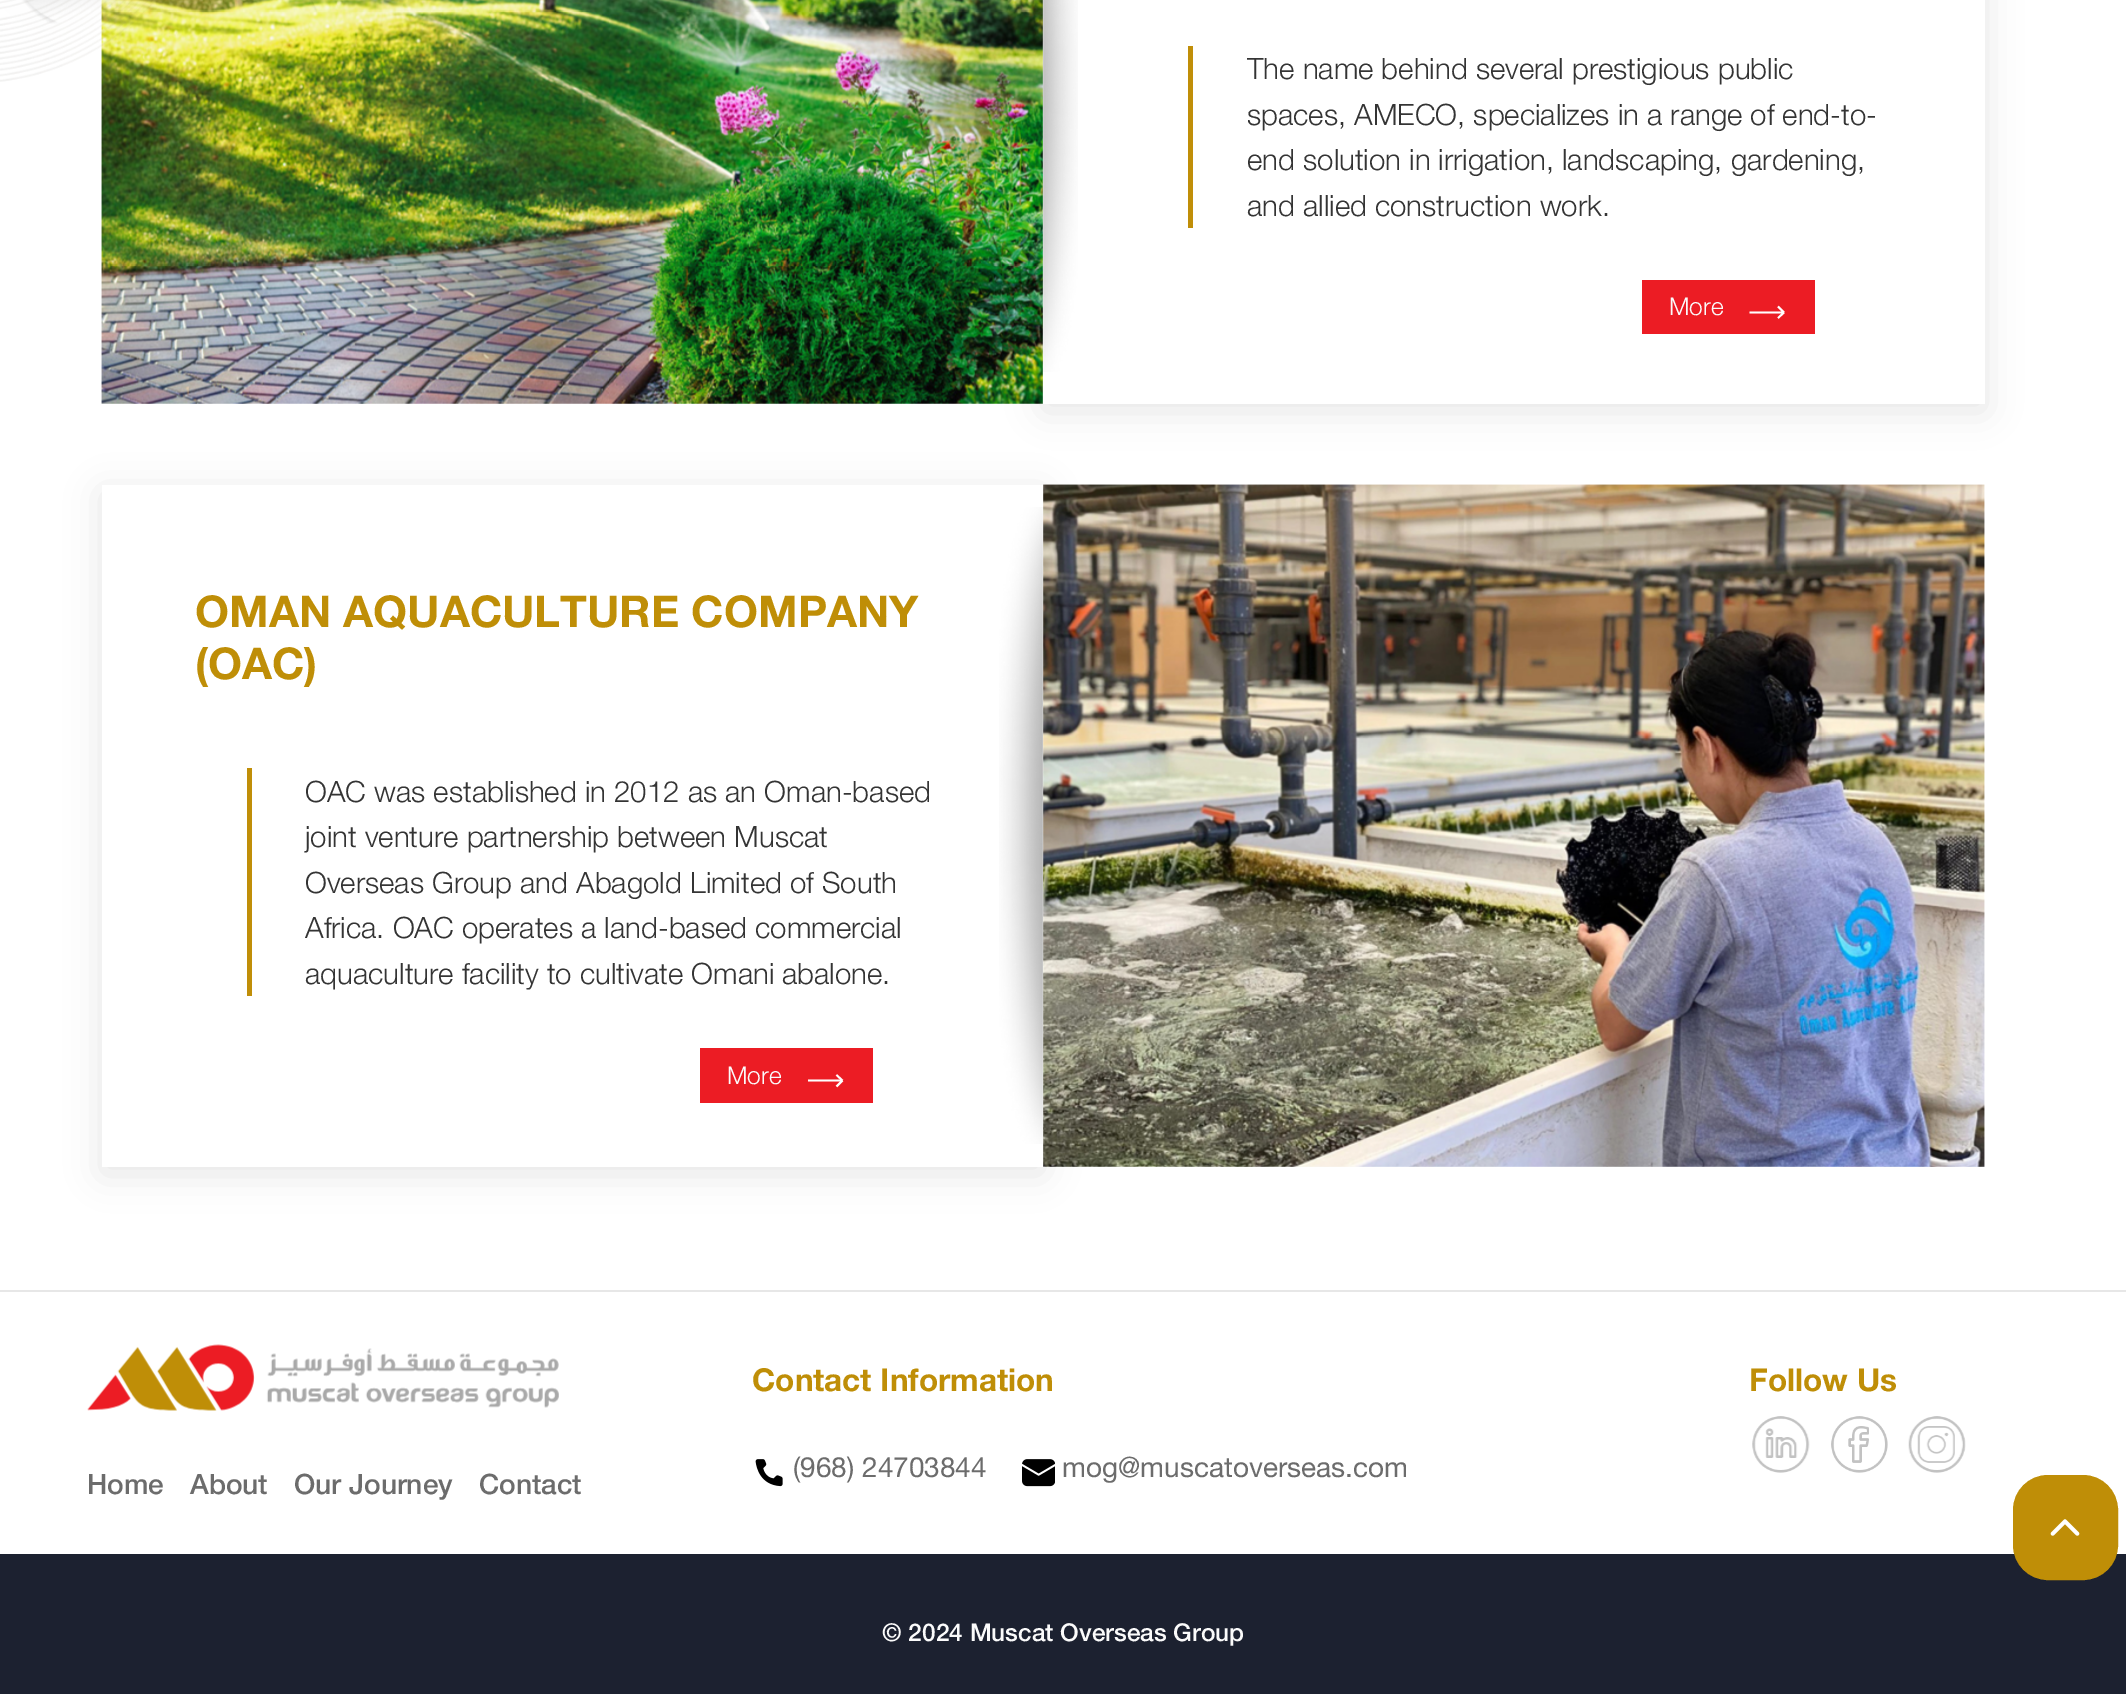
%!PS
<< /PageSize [2126 1694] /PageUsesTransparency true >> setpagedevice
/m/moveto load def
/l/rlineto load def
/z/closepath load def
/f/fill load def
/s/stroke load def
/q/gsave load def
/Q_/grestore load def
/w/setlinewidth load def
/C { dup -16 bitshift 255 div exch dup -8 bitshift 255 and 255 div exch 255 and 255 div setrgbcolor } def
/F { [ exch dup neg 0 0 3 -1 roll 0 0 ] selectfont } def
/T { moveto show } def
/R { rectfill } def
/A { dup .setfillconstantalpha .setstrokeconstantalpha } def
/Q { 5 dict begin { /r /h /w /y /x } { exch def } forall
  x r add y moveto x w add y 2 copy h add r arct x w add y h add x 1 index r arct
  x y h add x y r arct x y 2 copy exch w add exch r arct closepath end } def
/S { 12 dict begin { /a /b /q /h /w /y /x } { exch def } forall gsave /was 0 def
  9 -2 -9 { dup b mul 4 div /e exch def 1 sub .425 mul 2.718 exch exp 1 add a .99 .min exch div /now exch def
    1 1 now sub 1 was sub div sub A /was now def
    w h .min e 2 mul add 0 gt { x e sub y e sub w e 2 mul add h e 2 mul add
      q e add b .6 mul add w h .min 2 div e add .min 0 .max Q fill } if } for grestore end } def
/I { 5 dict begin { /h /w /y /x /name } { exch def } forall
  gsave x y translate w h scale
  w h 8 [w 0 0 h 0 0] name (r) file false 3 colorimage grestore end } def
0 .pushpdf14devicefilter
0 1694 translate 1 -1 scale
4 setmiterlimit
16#1C2130 C
0 0 2126 1694 R
16#FFFFFF C
0 0 2126 1290 R
q
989 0 m 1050 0 l 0 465 l -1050 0 l z 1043 -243 m 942 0 l 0 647 l -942 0 l z eoclip newpath
16#000000 C
1043 -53 942 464 0 17.5 .1 S
Q_
(3.rgb) 1042 0 36 372 I
(2.rgb) 101 0 942 404 I
(1.rgb) 0 0 317 82 I
16#C08E08 C
1188 46 5 182 R
/HelveticaNeue-Light 29.4 F
16#343434 C
(The name behind several prestigious public) 1247 79 T
(spaces, AMECO, specializes in a range of end-to-) 1247 125 T
(end solution in irrigation, landscaping, gardening,) 1247 170 T
(and allied construction work.) 1247 216 T
16#EC1C24 C
1642 280 173 54 R
/HelveticaNeue-Light 24.5 F
16#FBFBFB C
(More) 1669 315 T
16#FFFFFF C
1.8 w
1784 312.5 m -6 -6 l 1784 312.5 m -6 5.5 l 1784 312.5 m -34.5 0 l s
q
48 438 m 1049 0 l 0 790 l -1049 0 l z 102 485 m 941 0 l 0 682 l -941 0 l z eoclip newpath
16#000000 C
102 492 941 682 0 17.5 .1 S
Q_
(4.rgb) 999 507 44 637 I
/HelveticaNeue-Bold 43.75 F
16#BF8E07 C
(OMAN AQUACULTURE COMPANY) 195 627 T
(\(OAC\)) 195 679 T
16#C08E08 C
247 768 5 228 R
/HelveticaNeue-Light 29.4 F
16#343434 C
(OAC was established in 2012 as an Oman-based) 305 802 T
(joint venture partnership between Muscat) 305 847 T
(Overseas Group and Abagold Limited of South) 305 893 T
(Africa. OAC operates a land-based commercial) 305 938 T
(aquaculture facility to cultivate Omani abalone.) 305 984 T
16#EC1C24 C
700 1048 173 55 R
/HelveticaNeue-Light 24.5 F
16#FBFBFB C
(More) 727 1084 T
16#FFFFFF C
842.5 1080.5 m -6 -5.5 l 842.5 1080.5 m -6 6 l 842.5 1080.5 m -34.5 0 l s
(5.rgb) 1043 484 942 683 I
0 1292 2126 262 R
16#E7E7E7 C
0 1290 2126 2 R
/HelveticaNeue-Bold 31.5 F
16#BF8E07 C
(Contact Information) 752 1391 T
(6.rgb) 755 1459 28 28 I
/HelveticaNeue-Regular 28 F
16#6C6C6C C
(\(968\) 24703844) 793 1477 T
(7.rgb) 1022 1459 33 28 I
(mog@muscatoverseas.com) 1062 1477 T
/HelveticaNeue-Bold 31.5 F
16#BF8E07 C
(Follow Us) 1749 1391 T
(8.rgb) 1752 1416 58 57 I
(9.rgb) 1831 1416 57 57 I
(10.rgb) 1908 1416 58 57 I
(11.rgb) 87 1344 472 67 I
/HelveticaNeue-Medium 28 F
16#6C6C6C C
(Home) 87 1494 T
(About) 190 1494 T
(Our Journey) 294 1494 T
(Contact) 479 1494 T
16#BF8E07 C
2014 1476 103 103 34 Q q f Q_
2 w
s
(12.rgb) 2050 1519 30 17 I
/HelveticaNeue-Medium 24.5 F
16#FBFBFB C
(© 2024 Muscat Overseas Group) 882 1641 T
.poppdf14devicefilter showpage
